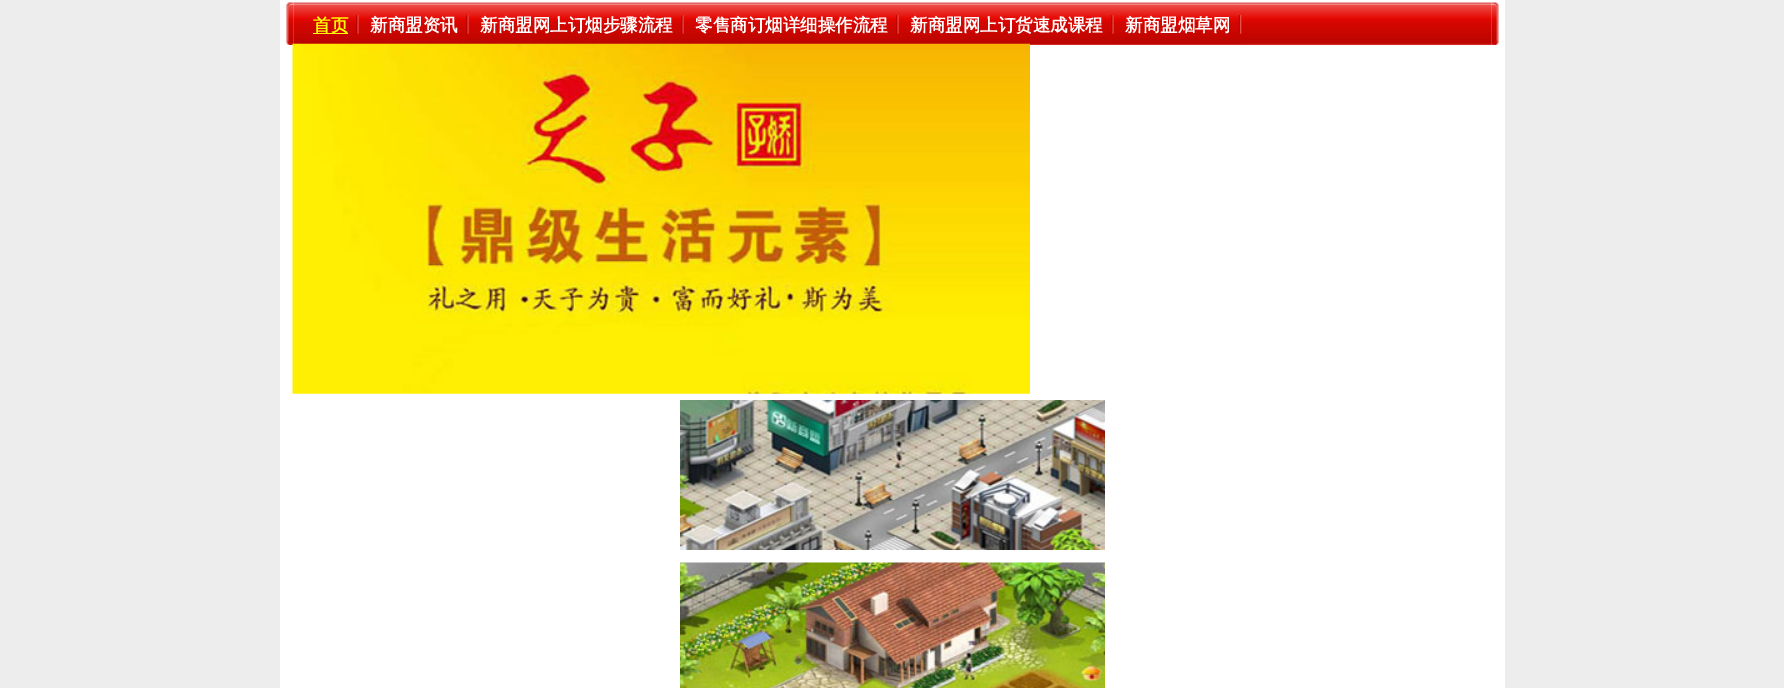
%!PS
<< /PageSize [1784 688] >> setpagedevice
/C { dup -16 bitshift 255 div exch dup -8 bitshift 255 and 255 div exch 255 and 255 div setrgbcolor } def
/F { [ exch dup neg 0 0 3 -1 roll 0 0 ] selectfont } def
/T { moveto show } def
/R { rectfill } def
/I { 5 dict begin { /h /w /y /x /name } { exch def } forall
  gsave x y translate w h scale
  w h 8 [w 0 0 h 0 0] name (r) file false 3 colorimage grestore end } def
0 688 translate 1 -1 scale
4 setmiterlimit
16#EDEDED C
0 0 1784 688 R
16#FFFFFF C
280 0 1225 688 R
(1.rgb) 286 2 8 43 I
(2.rgb) 293 2 1199 43 I
(3.rgb) 301 15 58 29 I
16#FFFF00 C
313 33 35 1 R
/WenQuanYiZenHei-Bold 17.5 F
(首页) 313 31 T
(4.rgb) 358 15 111 29 I
16#FFFFFF C
(新商盟资讯) 370 31 T
(5.rgb) 468 15 216 29 I
(新商盟网上订烟步骤流程) 480 31 T
(6.rgb) 683 15 216 29 I
(零售商订烟详细操作流程) 695 31 T
(6.rgb) 898 15 216 29 I
(新商盟网上订货速成课程) 910 31 T
(7.rgb) 1113 15 129 29 I
(新商盟烟草网) 1125 31 T
(8.rgb) 1491 2 8 43 I
(9.rgb) 292 43 738 351 I
(10.rgb) 680 400 425 150 I
(11.rgb) 680 562 425 126 I
showpage
